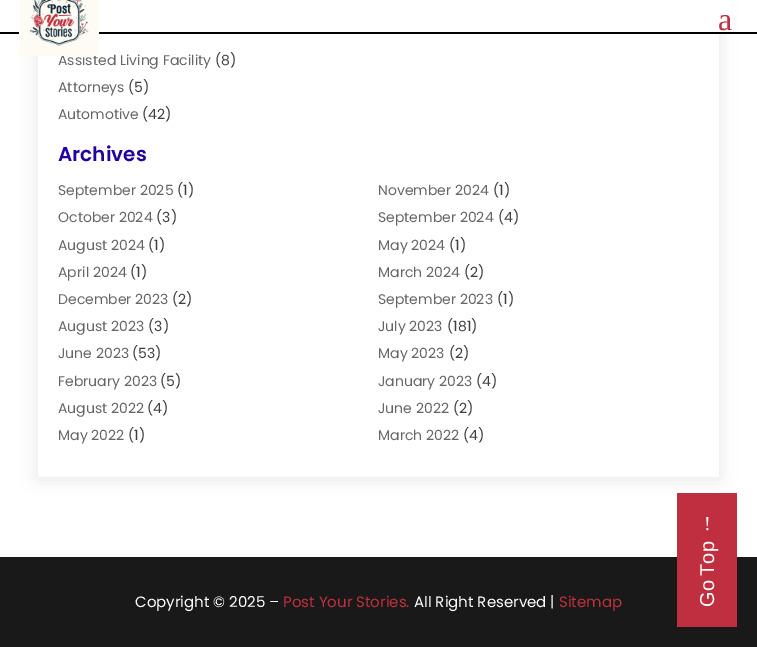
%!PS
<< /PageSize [757 647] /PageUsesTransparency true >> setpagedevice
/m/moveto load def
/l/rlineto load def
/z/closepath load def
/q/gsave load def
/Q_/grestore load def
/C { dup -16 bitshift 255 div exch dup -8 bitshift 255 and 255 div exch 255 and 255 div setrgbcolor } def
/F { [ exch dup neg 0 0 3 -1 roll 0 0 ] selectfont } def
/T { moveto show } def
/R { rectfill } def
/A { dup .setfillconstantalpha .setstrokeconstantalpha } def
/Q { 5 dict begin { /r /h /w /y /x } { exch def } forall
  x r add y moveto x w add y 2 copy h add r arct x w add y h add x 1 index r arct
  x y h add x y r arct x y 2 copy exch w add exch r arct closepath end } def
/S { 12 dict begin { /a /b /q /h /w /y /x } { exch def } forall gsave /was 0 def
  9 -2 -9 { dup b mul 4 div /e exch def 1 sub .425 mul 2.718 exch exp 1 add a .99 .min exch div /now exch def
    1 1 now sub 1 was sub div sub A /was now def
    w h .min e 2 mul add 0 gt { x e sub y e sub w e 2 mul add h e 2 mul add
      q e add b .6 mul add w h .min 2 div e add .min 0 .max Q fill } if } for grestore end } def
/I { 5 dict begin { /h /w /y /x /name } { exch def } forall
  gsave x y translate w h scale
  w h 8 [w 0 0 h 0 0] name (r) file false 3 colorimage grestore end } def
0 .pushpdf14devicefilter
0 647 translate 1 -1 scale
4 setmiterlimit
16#FFFFFF C
0 0 757 647 R
q
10 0 m 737 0 l 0 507 l -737 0 l z 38 -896 m 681 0 l 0 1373 l -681 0 l z eoclip newpath
16#000000 C
38 -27 681 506 0 9 .1 S
Q_
26 0 705 32 R
16#000000 C
0 32 757 2 R
/Poppins-Regular 14 F
16#666666 C
(Assisted Living Facility) 58 65 T
16#FDFBF4 C
19 0 80 56 R
(1.rgb) 29 0 60 46 I
/LiberationSerif-Regular 32 F
16#BF2F3F C
(a) 718 30 T
/Poppins-Regular 14 F
16#3F3F3F C
(\(8\)) 215 65 T
16#666666 C
(Attorneys) 58 92 T
16#3F3F3F C
(\(5\)) 128 92 T
16#666666 C
(Automotive) 58 119 T
16#3F3F3F C
(\(42\)) 142 119 T
/Poppins-SemiBold 20 F
16#2401A3 C
(Archives) 58 161 T
/Poppins-Regular 14 F
16#666666 C
(September 2025) 58 195 T
16#3F3F3F C
(\(1\)) 177 195 T
16#666666 C
(November 2024) 378 195 T
16#3F3F3F C
(\(1\)) 493 195 T
16#666666 C
(October 2024) 58 222 T
16#3F3F3F C
(\(3\)) 156 222 T
16#666666 C
(September 2024) 378 222 T
16#3F3F3F C
(\(4\)) 498 222 T
16#666666 C
(August 2024) 58 250 T
16#3F3F3F C
(\(1\)) 148 250 T
16#666666 C
(May 2024) 378 250 T
16#3F3F3F C
(\(1\)) 449 250 T
16#666666 C
(April 2024) 58 277 T
16#3F3F3F C
(\(1\)) 130 277 T
16#666666 C
(March 2024) 378 277 T
16#3F3F3F C
(\(2\)) 464 277 T
16#666666 C
(December 2023) 58 304 T
16#3F3F3F C
(\(2\)) 172 304 T
16#666666 C
(September 2023) 378 304 T
16#3F3F3F C
(\(1\)) 497 304 T
16#666666 C
(August 2023) 58 331 T
16#3F3F3F C
(\(3\)) 148 331 T
16#666666 C
(July 2023) 378 331 T
16#3F3F3F C
(\(181\)) 447 331 T
16#666666 C
(June 2023) 58 358 T
16#3F3F3F C
(\(53\)) 132 358 T
16#666666 C
(May 2023) 378 358 T
16#3F3F3F C
(\(2\)) 449 358 T
16#666666 C
(February 2023) 58 386 T
16#3F3F3F C
(\(5\)) 160 386 T
16#666666 C
(January 2023) 378 386 T
16#3F3F3F C
(\(4\)) 476 386 T
16#666666 C
(August 2022) 58 413 T
16#3F3F3F C
(\(4\)) 147 413 T
16#666666 C
(June 2022) 378 413 T
16#3F3F3F C
(\(2\)) 453 413 T
16#666666 C
(May 2022) 58 440 T
16#3F3F3F C
(\(1\)) 128 440 T
16#666666 C
(March 2022) 378 440 T
16#3F3F3F C
(\(4\)) 463 440 T
16#191919 C
0 557 757 90 R
/Poppins-Regular 15 F
16#FFFFFF C
(Copyright © 2025 –) 135 607 T
16#BF2F3F C
(Post Your Stories.) 283 607 T
16#FFFFFF C
(All Right Reserved |) 414 607 T
16#BF2F3F C
(Sitemap) 559 607 T
677 493 60 134 R
/LiberationSerif-Regular 20 F
16#FFFFFF C
(!) 704 530 T
/LiberationSans-Regular 20 F
q 714 607 translate -90 rotate 0 0 m -1 0 32 (Go Top) widthshow Q_
.poppdf14devicefilter showpage
